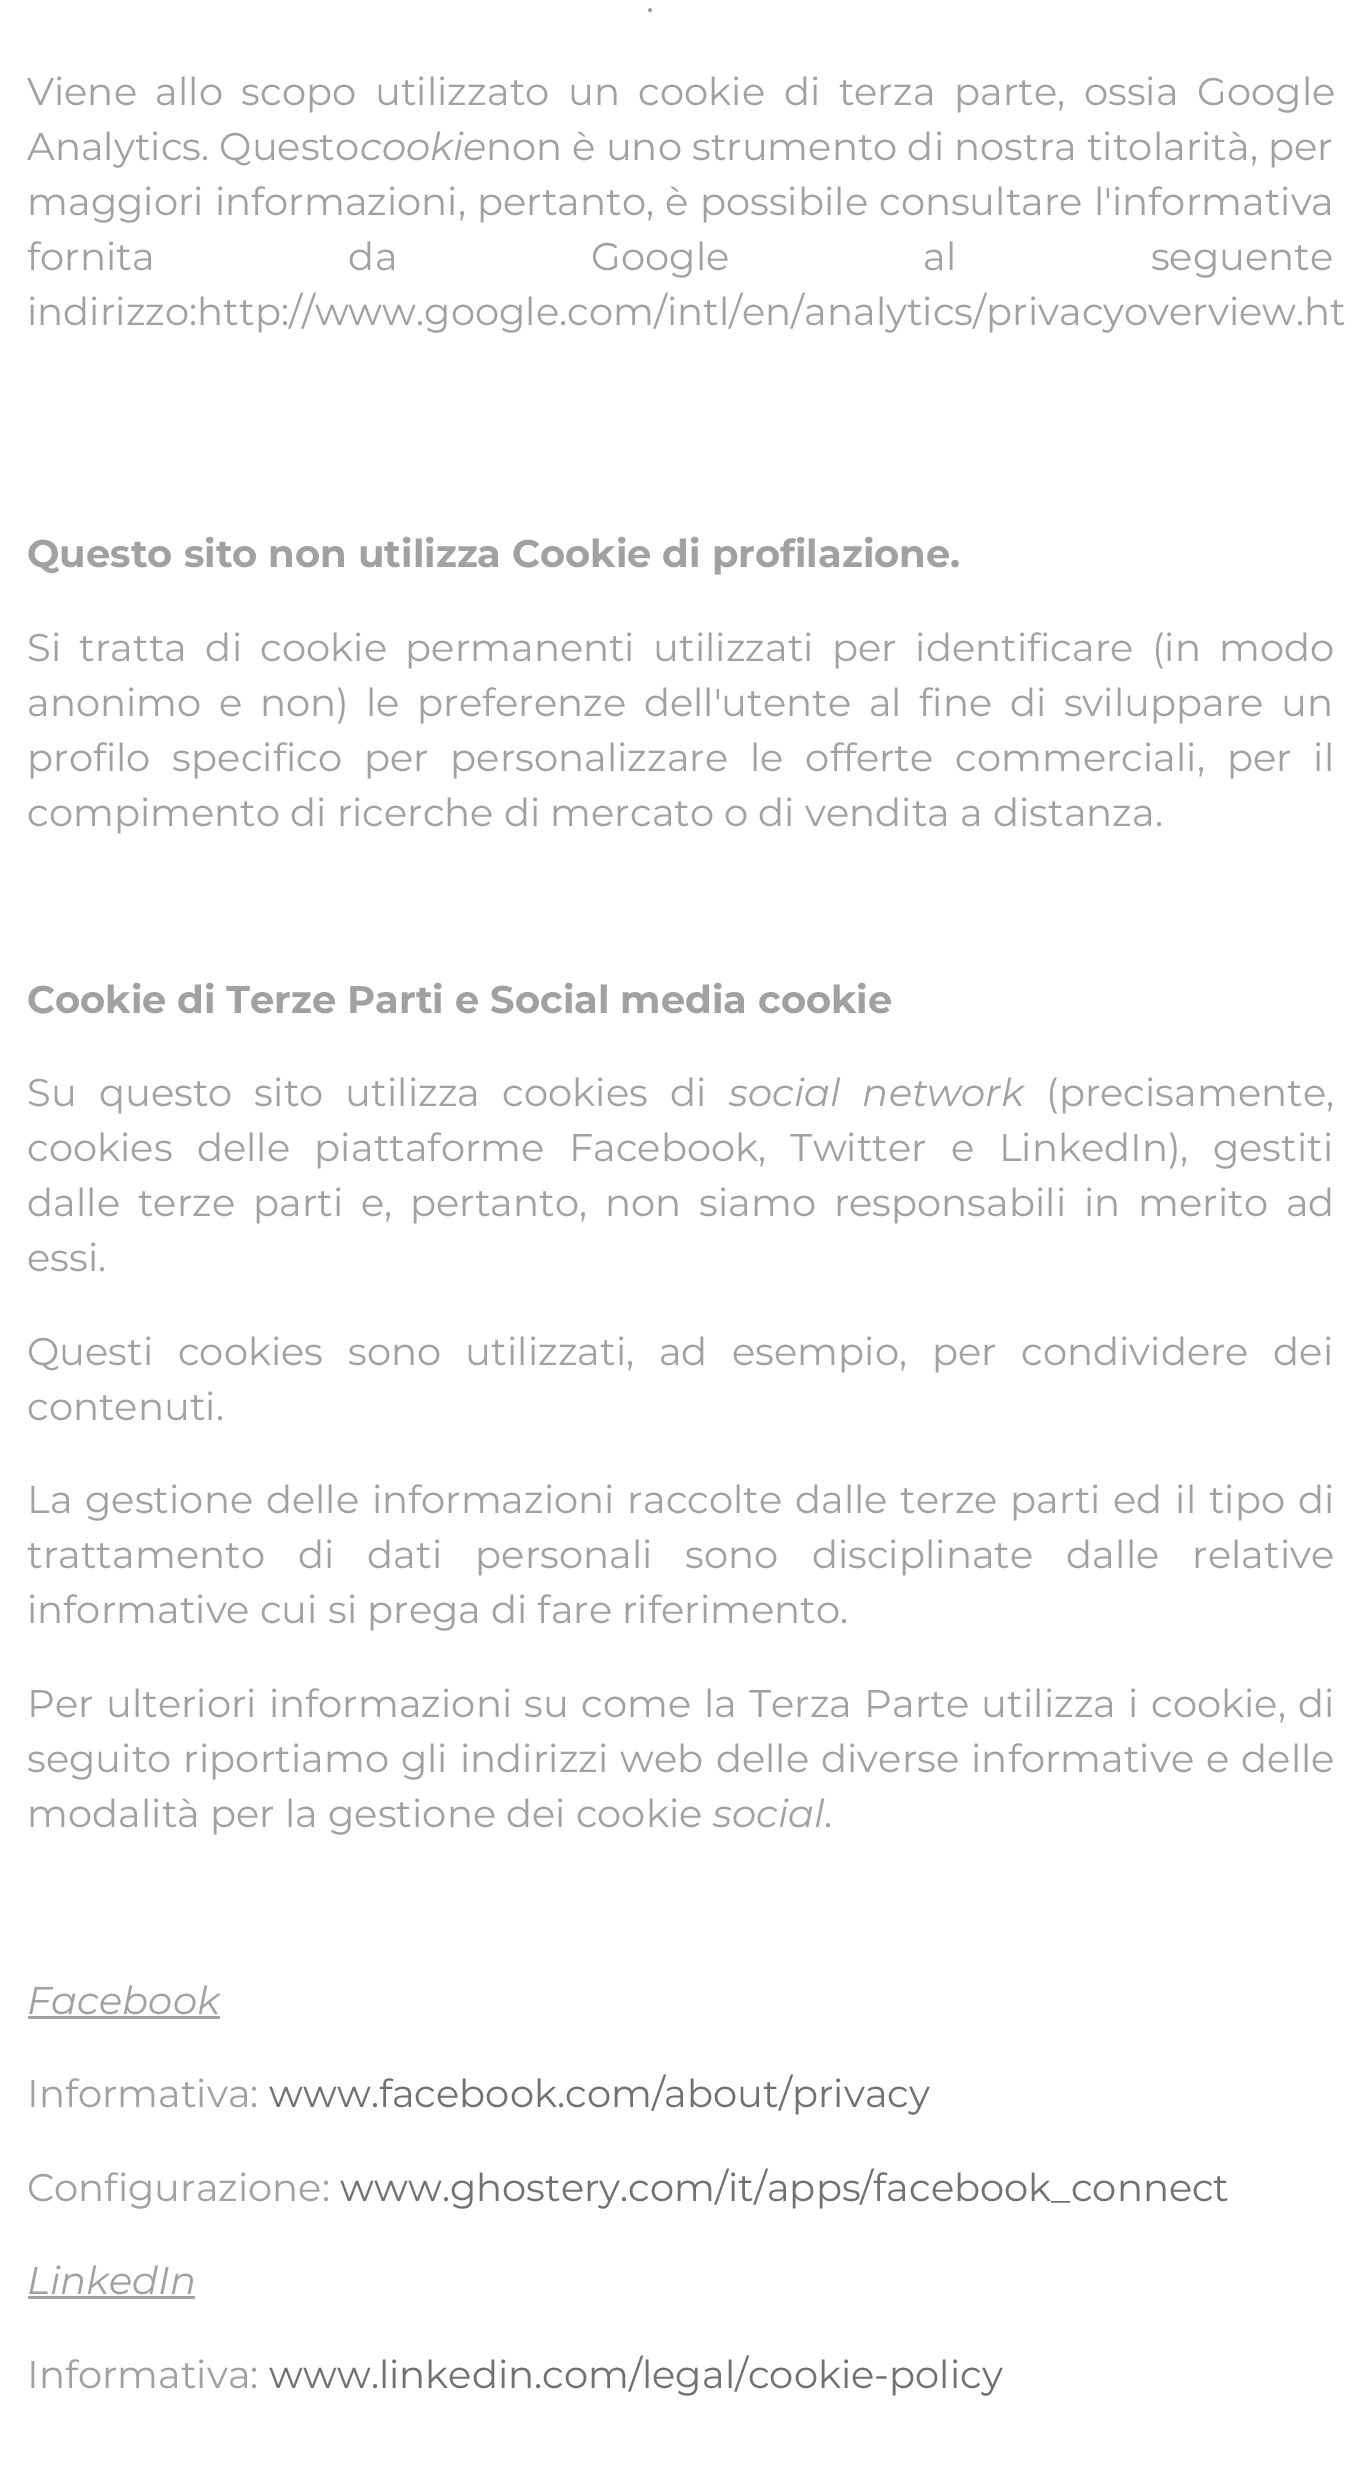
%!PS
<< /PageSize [1361 2466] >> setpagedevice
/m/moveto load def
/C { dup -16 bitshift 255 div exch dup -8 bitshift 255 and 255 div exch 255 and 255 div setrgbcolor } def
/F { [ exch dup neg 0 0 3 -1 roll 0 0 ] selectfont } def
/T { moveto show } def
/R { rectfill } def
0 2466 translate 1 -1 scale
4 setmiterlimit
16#FFFFFF C
0 0 1361 2466 R
/Montserrat-Regular 38.5 F
16#A0A1A3 C
(.) 646 12 T
27 105 m 8.5 0 32 (Viene allo scopo utilizzato un cookie di terza parte, ossia Google) widthshow
(Analytics. Questo) 27 160 T
/Montserrat-Italic 38.5 F
(cookie) 360 160 T
/Montserrat-Regular 38.5 F
(non è uno strumento di nostra titolarità, per) 486 160 T
27 215 m 1 0 32 (maggiori informazioni, pertanto, è possibile consultare l'informativa) widthshow
27 270 m 184 0 32 (fornita da Google al seguente) widthshow
(indirizzo:http://www.google.com/intl/en/analytics/privacyoverview.ht) 27 325 T
/Montserrat-Bold 38.5 F
(Questo sito non utilizza Cookie di profilazione.) 27 567 T
/Montserrat-Regular 38.5 F
27 661 m 8.25 0 32 (Si tratta di cookie permanenti utilizzati per identificare \(in modo) widthshow
27 716 m 7.5 0 32 (anonimo e non\) le preferenze dell'utente al fine di sviluppare un) widthshow
27 771 m 11.75 0 32 (profilo specifico per personalizzare le offerte commerciali, per il) widthshow
(compimento di ricerche di mercato o di vendita a distanza.) 27 826 T
/Montserrat-Bold 38.5 F
(Cookie di Terze Parti e Social media cookie) 27 1013 T
/Montserrat-Regular 38.5 F
27 1106 m 12 0 32 (Su questo sito utilizza cookies di) widthshow
/Montserrat-Italic 38.5 F
729 1106 m 12 0 32 (social network) widthshow
/Montserrat-Regular 38.5 F
(\(precisamente,) 1046 1106 T
27 1161 m 14.25 0 32 (cookies delle piattaforme Facebook, Twitter e LinkedIn\), gestiti) widthshow
27 1216 m 7.75 0 32 (dalle terze parti e, pertanto, non siamo responsabili in merito ad) widthshow
(essi.) 27 1271 T
27 1365 m 14.5 0 32 (Questi cookies sono utilizzati, ad esempio, per condividere dei) widthshow
(contenuti.) 27 1420 T
27 1513 m 2.6 0 32 (La gestione delle informazioni raccolte dalle terze parti ed il tipo di) widthshow
27 1568 m 23 0 32 (trattamento di dati personali sono disciplinate dalle relative) widthshow
(informative cui si prega di fare riferimento.) 27 1623 T
27 1717 m 2.25 0 32 (Per ulteriori informazioni su come la Terza Parte utilizza i cookie, di) widthshow
27 1772 m 2 0 32 (seguito riportiamo gli indirizzi web delle diverse informative e delle) widthshow
(modalità per la gestione dei cookie) 27 1827 T
/Montserrat-Italic 38.5 F
(social) 713 1827 T
/Montserrat-Regular 38.5 F
(.) 824 1827 T
/Montserrat-Italic 38.5 F
(Facebook) 27 2014 T
28 2016 192 3 R
/Montserrat-Regular 38.5 F
(Informativa:) 27 2107 T
16#707173 C
(www.facebook.com/about/privacy) 269 2107 T
16#A0A1A3 C
(Configurazione:) 27 2201 T
16#707173 C
(www.ghostery.com/it/apps/facebook_connect) 340 2201 T
/Montserrat-Italic 38.5 F
16#A0A1A3 C
(LinkedIn) 27 2294 T
28 2296 167 3 R
/Montserrat-Regular 38.5 F
(Informativa:) 27 2388 T
16#707173 C
(www.linkedin.com/legal/cookie-policy) 269 2388 T
showpage
